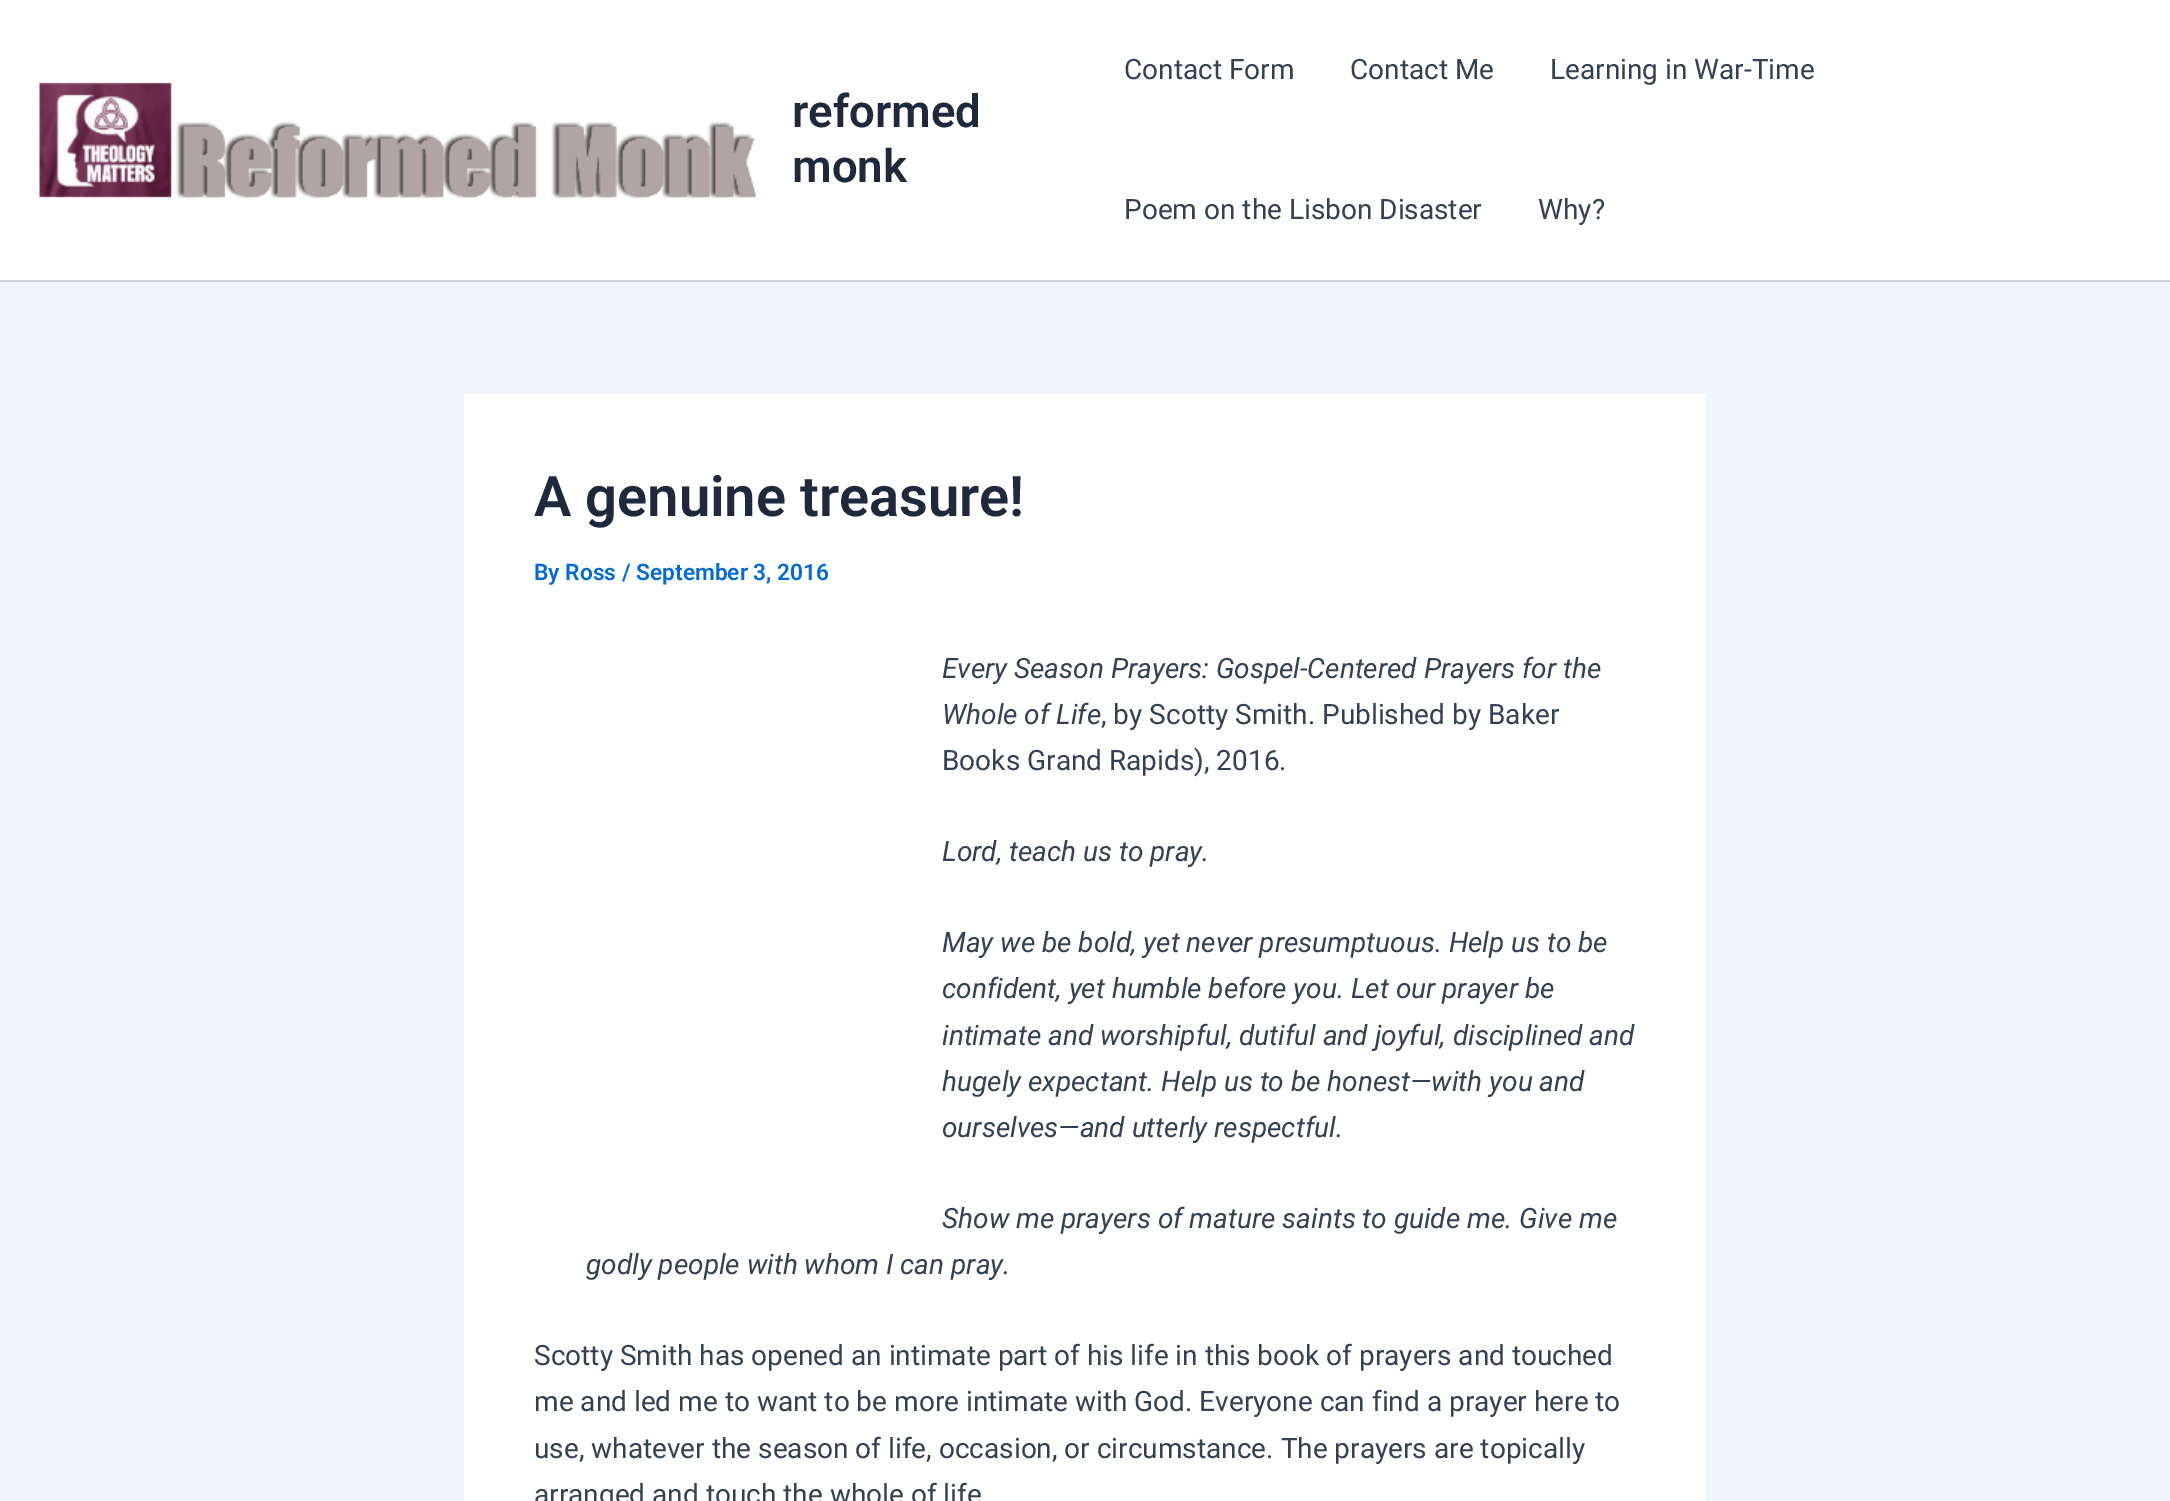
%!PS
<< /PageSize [2170 1501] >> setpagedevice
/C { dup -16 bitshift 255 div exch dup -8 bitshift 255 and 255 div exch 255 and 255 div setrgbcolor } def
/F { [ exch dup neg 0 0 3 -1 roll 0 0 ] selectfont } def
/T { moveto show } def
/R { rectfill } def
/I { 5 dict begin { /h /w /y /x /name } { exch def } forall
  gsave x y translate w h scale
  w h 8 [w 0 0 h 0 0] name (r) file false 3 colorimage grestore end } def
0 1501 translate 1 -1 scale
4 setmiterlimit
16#F0F5FA C
0 0 2170 1501 R
16#FFFFFF C
0 0 2170 280 R
16#D1D5DB C
0 280 2170 2 R
(1.rgb) 39 82 718 117 I
/Roboto-SemiBold 45.5 F
16#1E293B C
(reformed) 792 127 T
(monk) 792 182 T
/Roboto-Regular 28 F
16#334155 C
(Contact Form) 1124 79 T
(Contact Me) 1350 79 T
(Learning in War-Time) 1550 79 T
(Poem on the Lisbon Disaster) 1124 219 T
(Why?) 1538 219 T
16#FFFFFF C
464 394 1242 1107 R
/Roboto-SemiBold 56 F
16#1E293B C
(A genuine treasure!) 534 516 T
/Roboto-SemiBold 22.75 F
16#046BD2 C
(By Ross / September 3, 2016) 534 580 T
/Roboto-Italic 28 F
16#334155 C
(Every Season Prayers: Gospel-Centered Prayers for the) 942 678 T
(Whole of Life) 942 724 T
/Roboto-Regular 28 F
(, by Scotty Smith. Published by Baker) 1101 724 T
(Books Grand Rapids\), 2016.) 942 770 T
/Roboto-Italic 28 F
(Lord, teach us to pray.) 942 861 T
(May we be bold, yet never presumptuous. Help us to be) 942 952 T
(confident, yet humble before you. Let our prayer be) 942 998 T
(intimate and worshipful, dutiful and joyful, disciplined and) 942 1045 T
(hugely expectant. Help us to be honest—with you and) 942 1091 T
(ourselves—and utterly respectful.) 942 1137 T
(Show me prayers of mature saints to guide me. Give me) 942 1228 T
(godly people with whom I can pray.) 586 1274 T
/Roboto-Regular 28 F
(Scotty Smith has opened an intimate part of his life in this book of prayers and touched) 534 1365 T
(me and led me to want to be more intimate with God. Everyone can find a prayer here to) 534 1411 T
(use, whatever the season of life, occasion, or circumstance. The prayers are topically) 534 1458 T
(arranged and touch the whole of life) 534 1504 T
showpage
